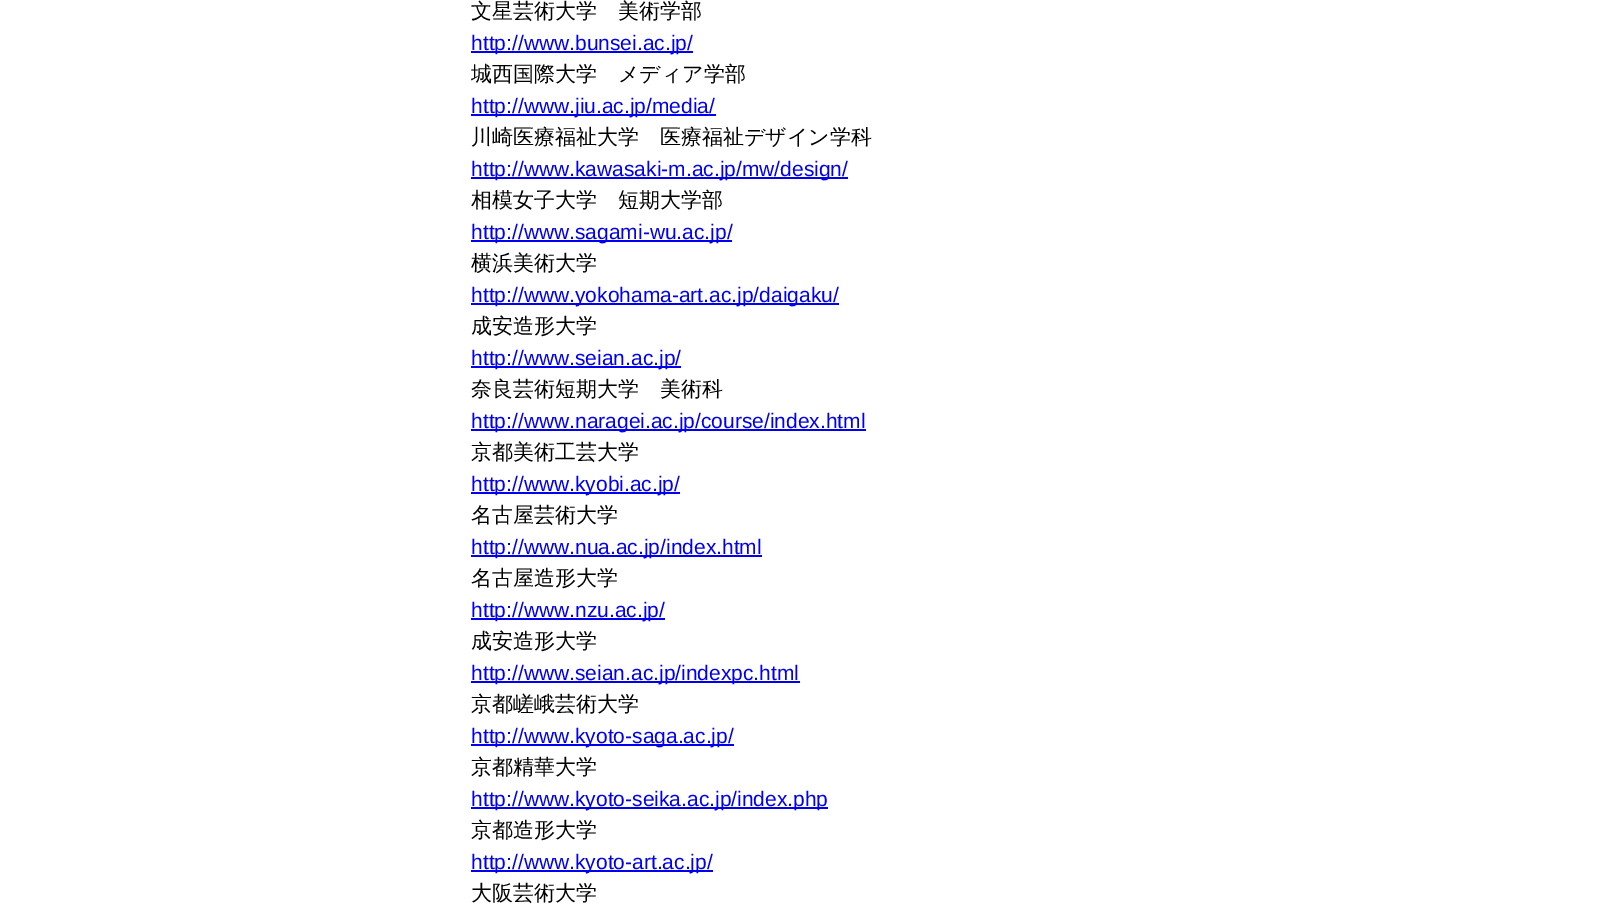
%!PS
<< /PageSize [1616 921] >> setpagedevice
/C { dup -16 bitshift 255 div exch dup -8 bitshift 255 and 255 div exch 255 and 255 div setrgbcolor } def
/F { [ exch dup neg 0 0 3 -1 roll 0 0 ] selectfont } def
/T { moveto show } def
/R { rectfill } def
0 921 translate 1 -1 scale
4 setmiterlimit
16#FFFFFF C
0 0 1616 921 R
/WenQuanYiZenHei-Medium 21 F
16#000000 C
(文星芸術大学　美術学部) 471 18 T
16#0000EE C
471 51 222 2 R
/LiberationSans-Regular 21 F
(http://www.bunsei.ac.jp/) 471 50 T
/WenQuanYiZenHei-Medium 21 F
16#000000 C
(城西国際大学　メディア学部) 471 81 T
16#0000EE C
471 114 245 2 R
/LiberationSans-Regular 21 F
(http://www.jiu.ac.jp/media/) 471 113 T
/WenQuanYiZenHei-Medium 21 F
16#000000 C
(川崎医療福祉大学　医療福祉デザイン学科) 471 144 T
16#0000EE C
471 177 377 2 R
/LiberationSans-Regular 21 F
(http://www.kawasaki-m.ac.jp/mw/design/) 471 176 T
/WenQuanYiZenHei-Medium 21 F
16#000000 C
(相模女子大学　短期大学部) 471 207 T
16#0000EE C
471 240 261 2 R
/LiberationSans-Regular 21 F
(http://www.sagami-wu.ac.jp/) 471 239 T
/WenQuanYiZenHei-Medium 21 F
16#000000 C
(横浜美術大学) 471 270 T
16#0000EE C
471 303 368 2 R
/LiberationSans-Regular 21 F
(http://www.yokohama-art.ac.jp/daigaku/) 471 302 T
/WenQuanYiZenHei-Medium 21 F
16#000000 C
(成安造形大学) 471 333 T
16#0000EE C
471 366 210 2 R
/LiberationSans-Regular 21 F
(http://www.seian.ac.jp/) 471 365 T
/WenQuanYiZenHei-Medium 21 F
16#000000 C
(奈良芸術短期大学　美術科) 471 396 T
16#0000EE C
471 429 395 2 R
/LiberationSans-Regular 21 F
(http://www.naragei.ac.jp/course/index.html) 471 428 T
/WenQuanYiZenHei-Medium 21 F
16#000000 C
(京都美術工芸大学) 471 459 T
16#0000EE C
471 492 209 2 R
/LiberationSans-Regular 21 F
(http://www.kyobi.ac.jp/) 471 491 T
/WenQuanYiZenHei-Medium 21 F
16#000000 C
(名古屋芸術大学) 471 522 T
16#0000EE C
471 555 291 2 R
/LiberationSans-Regular 21 F
(http://www.nua.ac.jp/index.html) 471 554 T
/WenQuanYiZenHei-Medium 21 F
16#000000 C
(名古屋造形大学) 471 585 T
16#0000EE C
471 618 194 2 R
/LiberationSans-Regular 21 F
(http://www.nzu.ac.jp/) 471 617 T
/WenQuanYiZenHei-Medium 21 F
16#000000 C
(成安造形大学) 471 648 T
16#0000EE C
471 681 329 2 R
/LiberationSans-Regular 21 F
(http://www.seian.ac.jp/indexpc.html) 471 680 T
/WenQuanYiZenHei-Medium 21 F
16#000000 C
(京都嵯峨芸術大学) 471 711 T
16#0000EE C
471 744 263 2 R
/LiberationSans-Regular 21 F
(http://www.kyoto-saga.ac.jp/) 471 743 T
/WenQuanYiZenHei-Medium 21 F
16#000000 C
(京都精華大学) 471 774 T
16#0000EE C
471 807 357 2 R
/LiberationSans-Regular 21 F
(http://www.kyoto-seika.ac.jp/index.php) 471 806 T
/WenQuanYiZenHei-Medium 21 F
16#000000 C
(京都造形大学) 471 837 T
16#0000EE C
471 870 242 2 R
/LiberationSans-Regular 21 F
(http://www.kyoto-art.ac.jp/) 471 869 T
/WenQuanYiZenHei-Medium 21 F
16#000000 C
(大阪芸術大学) 471 900 T
showpage
